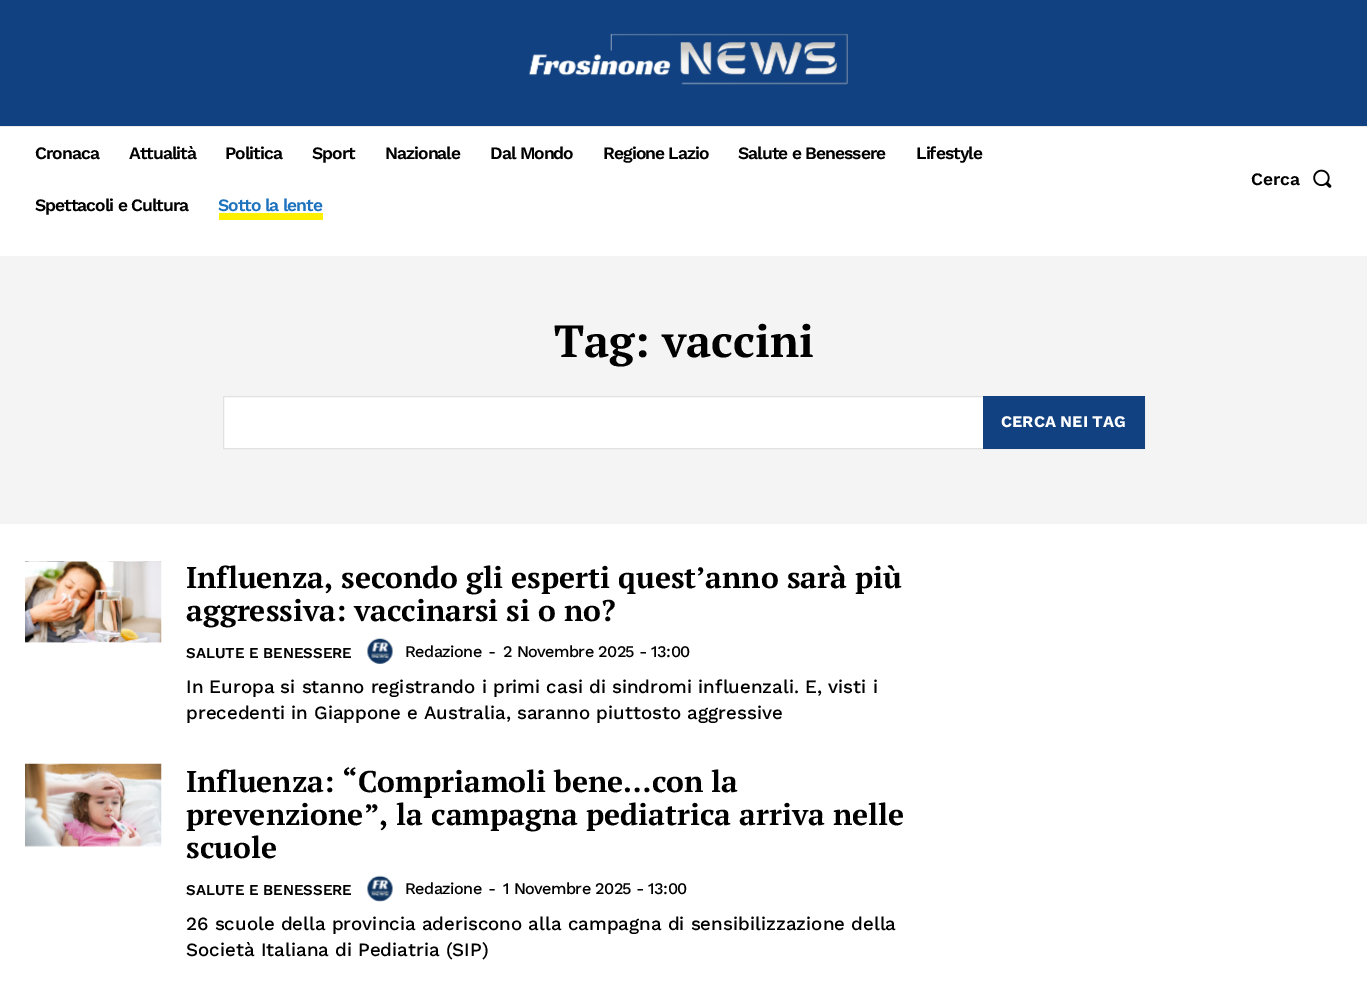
%!PS
<< /PageSize [1367 984] >> setpagedevice
/m/moveto load def
/C { dup -16 bitshift 255 div exch dup -8 bitshift 255 and 255 div exch 255 and 255 div setrgbcolor } def
/F { [ exch dup neg 0 0 3 -1 roll 0 0 ] selectfont } def
/T { moveto show } def
/R { rectfill } def
/I { 5 dict begin { /h /w /y /x /name } { exch def } forall
  gsave x y translate w h scale
  w h 8 [w 0 0 h 0 0] name (r) file false 3 colorimage grestore end } def
0 984 translate 1 -1 scale
4 setmiterlimit
16#FFFFFF C
0 0 1367 984 R
16#114180 C
0 0 1367 126 R
(1.rgb) 528 33 320 52 I
16#EAEAEA C
0 126 1367 1 R
/WorkSans-SemiBold 17.5 F
16#000000 C
35 159 m -1 0 (Cronaca) ashow
129 159 m -1 0 (Attualità) ashow
225 159 m -1 0 (Politica) ashow
312 159 m -1 0 (Sport) ashow
385 159 m -1 0 (Nazionale) ashow
490 159 m -1 0 (Dal Mondo) ashow
603 159 m -1 0 (Regione Lazio) ashow
738 159 m -1 0 (Salute e Benessere) ashow
916 159 m -1 0 (Lifestyle) ashow
35 211 m -1 0 (Spettacoli e Cultura) ashow
16#FFF000 C
219 213 104 7 R
16#1E73BE C
218 211 m -1 0 (Sotto la lente) ashow
16#000000 C
(Cerca) 1251 185 T
(2.rgb) 1313 169 19 19 I
16#F4F4F4 C
0 256 1367 268 R
/PTSerif-Bold 45 F
16#000000 C
(Tag: vaccini) 554 357 T
16#FFFFFF C
224 397 759 51 R
16#E1E1E1 C
223.5 396.5 921 52 rectstroke
16#114180 C
983 396 162 53 R
/WorkSans-Bold 16.25 F
16#FFFFFF C
(CERCA NEI TAG) 1001 427 T
(3.rgb) 25 561 137 82 I
/PTSerif-Bold 30 F
16#000000 C
(Influenza, secondo gli esperti quest’anno sarà più) 186 588 T
(aggressiva: vaccinarsi si o no?) 186 621 T
/WorkSans-SemiBold 15 F
(SALUTE E BENESSERE) 186 658 T
(4.rgb) 367 638 26 26 I
/WorkSans-Medium 16.25 F
405 657 m -.6 0 (Redazione) ashow
/WorkSans-Regular 16.25 F
488 657 m -.6 0 (-) ashow
/WorkSans-Medium 16.25 F
503 657 m -.6 0 (2 Novembre 2025 - 13:00) ashow
/WorkSans-Medium 18.75 F
(In Europa si stanno registrando i primi casi di sindromi influenzali. E, visti i) 186 693 T
(precedenti in Giappone e Australia, saranno piuttosto aggressive) 186 719 T
(5.rgb) 25 763 137 84 I
/PTSerif-Bold 30 F
(Influenza: “Compriamoli bene…con la) 186 792 T
(prevenzione”, la campagna pediatrica arriva nelle) 186 825 T
(scuole) 186 858 T
/WorkSans-SemiBold 15 F
(SALUTE E BENESSERE) 186 895 T
(6.rgb) 367 875 26 27 I
/WorkSans-Medium 16.25 F
405 894 m -.6 0 (Redazione) ashow
/WorkSans-Regular 16.25 F
488 894 m -.6 0 (-) ashow
/WorkSans-Medium 16.25 F
503 894 m -.6 0 (1 Novembre 2025 - 13:00) ashow
/WorkSans-Medium 18.75 F
(26 scuole della provincia aderiscono alla campagna di sensibilizzazione della) 186 930 T
(Società Italiana di Pediatria \(SIP\)) 186 956 T
showpage
